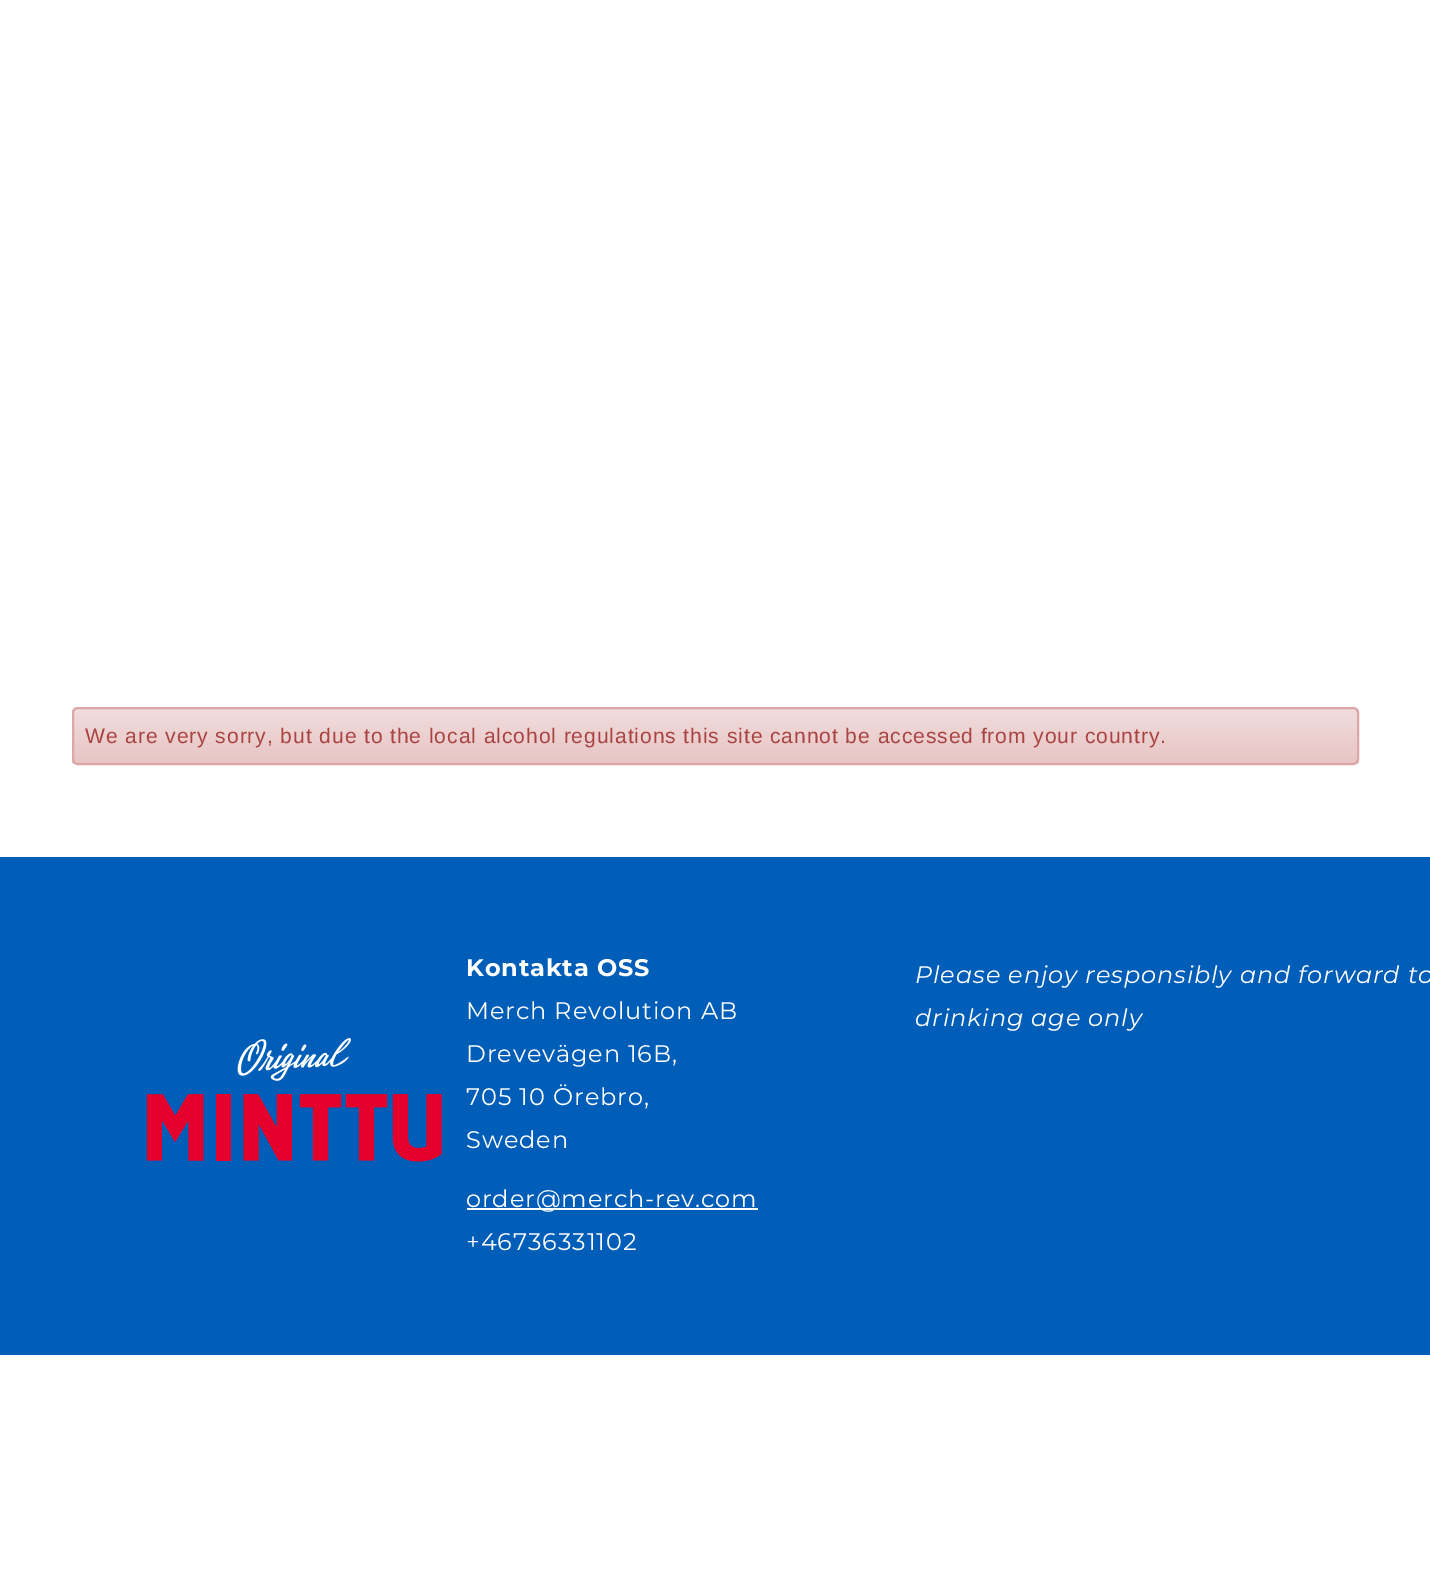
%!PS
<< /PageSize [1430 1579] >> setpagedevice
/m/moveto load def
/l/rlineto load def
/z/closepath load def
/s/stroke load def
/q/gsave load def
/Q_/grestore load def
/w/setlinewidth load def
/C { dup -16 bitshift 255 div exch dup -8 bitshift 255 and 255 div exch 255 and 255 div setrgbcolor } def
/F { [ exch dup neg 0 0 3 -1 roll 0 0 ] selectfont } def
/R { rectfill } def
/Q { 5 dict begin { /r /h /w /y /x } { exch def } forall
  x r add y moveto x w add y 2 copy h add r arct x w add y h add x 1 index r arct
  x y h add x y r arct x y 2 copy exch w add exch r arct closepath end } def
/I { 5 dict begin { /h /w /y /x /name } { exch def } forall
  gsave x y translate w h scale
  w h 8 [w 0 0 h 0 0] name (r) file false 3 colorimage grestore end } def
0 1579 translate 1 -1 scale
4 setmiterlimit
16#FFFFFF C
0 0 1430 1579 R
q
72 707 1287 58 6 Q clip newpath
q 72 708 m 1287 0 l 0 56 l -1287 0 l z clip newpath
<< /ShadingType 2 /ColorSpace /DeviceRGB /Coords [716 708 716 764] /Extend [true true] /Function << /FunctionType 2 /Domain [0 1] /C0 [.949 .871 .871] /C1 [.906 .765 .765] /N 1 >> >> shfill Q_
Q_
16#DCA7A7 C
2 w
73 708 1285 56 5 Q s
/LiberationSans-Regular 21.12 F
16#A94442 C
85 743 m .9 0 (We are very sorry, but due to the local alcohol regulations this site cannot be accessed from your country.) ashow
16#005EB8 C
0 857 1430 498 R
(1.rgb) 146 1038 296 124 I
/Montserrat-Bold 24 F
16#FFFFFF C
466 976 m .9 0 (Kontakta OSS) ashow
/Montserrat-Regular 24 F
466 1019 m .9 0 (Merch Revolution AB) ashow
466 1062 m .9 0 (Drevevägen 16B,) ashow
466 1105 m .9 0 (705 10 Örebro,) ashow
466 1148 m .9 0 (Sweden) ashow
467 1208 291 2 R
466 1207 m .9 0 (order@merch-rev.com) ashow
466 1250 m .9 0 (+46736331102) ashow
/Montserrat-Italic 24 F
915 983 m .9 0 (Please enjoy responsibly and forward to) ashow
915 1026 m .9 0 (drinking age only) ashow
showpage
